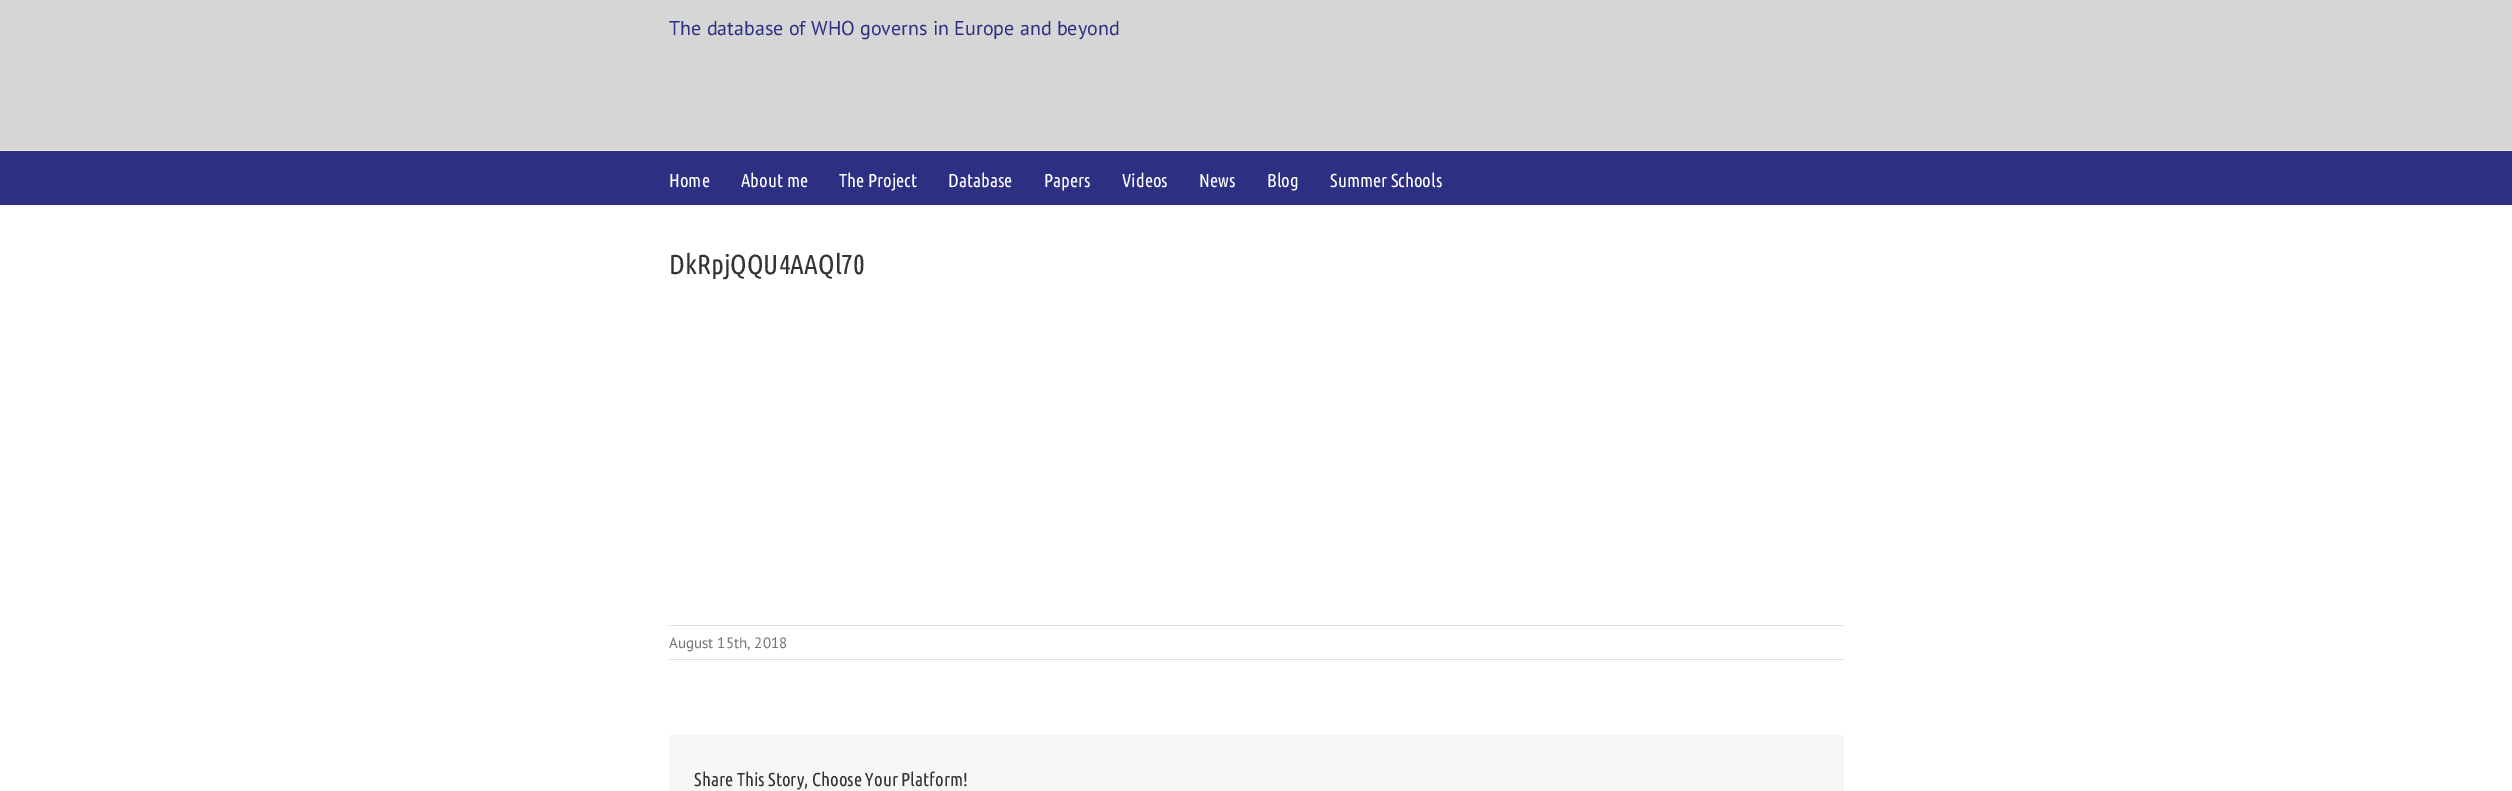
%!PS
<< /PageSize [2512 791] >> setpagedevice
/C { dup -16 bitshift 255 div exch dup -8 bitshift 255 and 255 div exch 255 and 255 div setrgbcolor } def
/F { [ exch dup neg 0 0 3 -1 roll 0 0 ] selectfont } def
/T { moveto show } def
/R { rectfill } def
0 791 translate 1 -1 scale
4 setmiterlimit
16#D7D6D6 C
0 0 2512 791 R
/PTSans-Regular 20 F
16#2D2F83 C
(The database of WHO governs in Europe and beyond) 669 35 T
16#E5E5E5 C
0 150 2512 1 R
16#2D2F83 C
0 151 2512 54 R
/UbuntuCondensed-Regular 18.75 F
16#FFFFFF C
(Home) 669 187 T
(About me) 741 187 T
(The Project) 839 187 T
(Database) 948 187 T
(Papers) 1044 187 T
(Videos) 1122 187 T
(News) 1199 187 T
(Blog) 1267 187 T
(Summer Schools) 1330 187 T
0 205 2512 586 R
/UbuntuCondensed-Regular 27.5 F
16#333333 C
(DkRpjQQU4AAQl70) 669 274 T
16#E0DEDE C
669 625 1175 1 R
669 659 1175 1 R
/PTSans-Regular 15 F
16#747474 C
(August 15th, 2018) 669 648 T
16#F6F6F6 C
669 735 1175 56 R
/UbuntuCondensed-Regular 18.75 F
16#333333 C
(Share This Story, Choose Your Platform!) 694 786 T
showpage
